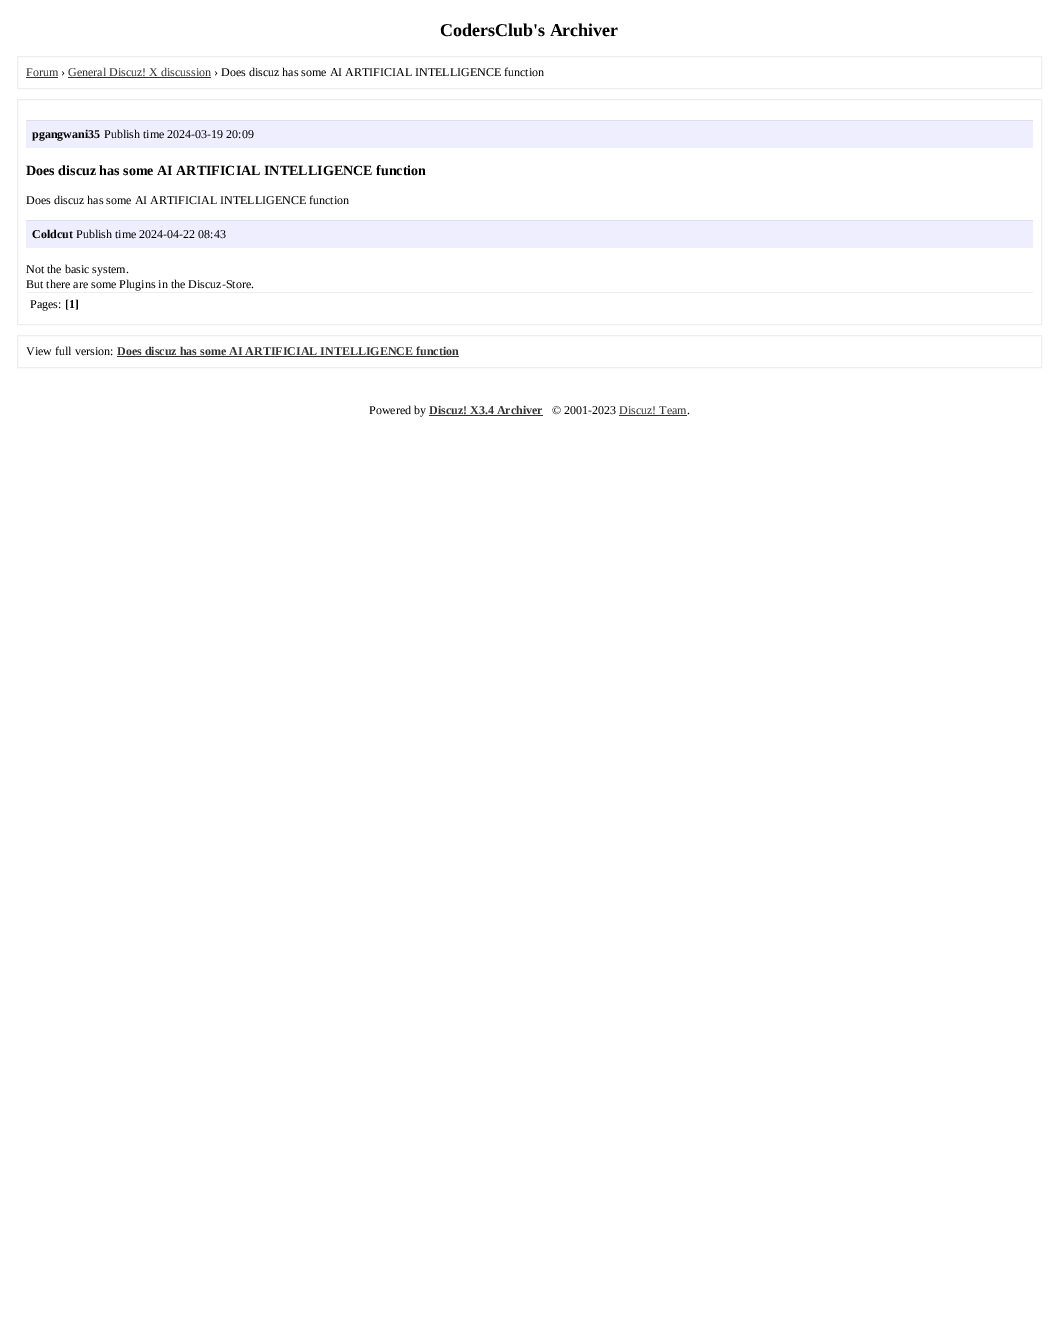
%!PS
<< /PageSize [1059 1324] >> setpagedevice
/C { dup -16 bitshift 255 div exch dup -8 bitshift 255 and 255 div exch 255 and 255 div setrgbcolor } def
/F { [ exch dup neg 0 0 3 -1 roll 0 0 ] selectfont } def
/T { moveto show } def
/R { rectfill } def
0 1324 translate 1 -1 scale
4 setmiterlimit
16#FFFFFF C
0 0 1059 1324 R
/LiberationSerif-Bold 18 F
16#000000 C
(CodersClub's Archiver) 440 36 T
16#EEEEEE C
17.5 56.5 1024 32 rectstroke
/LiberationSerif-Regular 12 F
16#333333 C
(Forum) 26 76 T
26 77 32 1 R
16#000000 C
(›) 61 76 T
16#333333 C
(General Discuz! X discussion) 68 76 T
68 77 143 1 R
16#000000 C
(› Does discuz has some AI ARTIFICIAL INTELLIGENCE function) 214 76 T
16#EEEEEE C
17.5 99.5 1024 225 rectstroke
16#EEEEFF C
26 121 1007 27 R
16#DDDDEE C
26 120 1007 1 R
/LiberationSerif-Bold 12 F
16#000000 C
(pgangwani35) 32 138 T
/LiberationSerif-Regular 12 F
(Publish time 2024-03-19 20:09) 104 138 T
/LiberationSerif-Bold 14.05 F
(Does discuz has some AI ARTIFICIAL INTELLIGENCE function) 26 175 T
/LiberationSerif-Regular 12 F
(Does discuz has some AI ARTIFICIAL INTELLIGENCE function) 26 204 T
16#EEEEFF C
26 221 1007 27 R
16#DDDDEE C
26 220 1007 1 R
/LiberationSerif-Bold 12 F
16#000000 C
(Coldcut) 32 238 T
/LiberationSerif-Regular 12 F
(Publish time 2024-04-22 08:43) 76 238 T
(Not the basic system.) 26 273 T
(But there are some Plugins in the Discuz-Store.) 26 288 T
16#EEEEEE C
26 292 1007 1 R
16#000000 C
(Pages:) 30 308 T
/LiberationSerif-Bold 12 F
([1]) 65 308 T
16#EEEEEE C
17.5 335.5 1024 32 rectstroke
/LiberationSerif-Regular 12 F
16#000000 C
(View full version:) 26 355 T
/LiberationSerif-Bold 12 F
16#333333 C
(Does discuz has some AI ARTIFICIAL INTELLIGENCE function) 117 355 T
117 356 342 1 R
/LiberationSerif-Regular 12 F
16#000000 C
(Powered by) 369 414 T
/LiberationSerif-Bold 12 F
16#333333 C
(Discuz! X3.4 Archiver) 429 414 T
429 415 114 1 R
/LiberationSerif-Regular 12 F
16#000000 C
(© 2001-2023) 552 414 T
16#333333 C
(Discuz! Team) 619 414 T
619 415 68 1 R
16#000000 C
(.) 687 414 T
showpage
